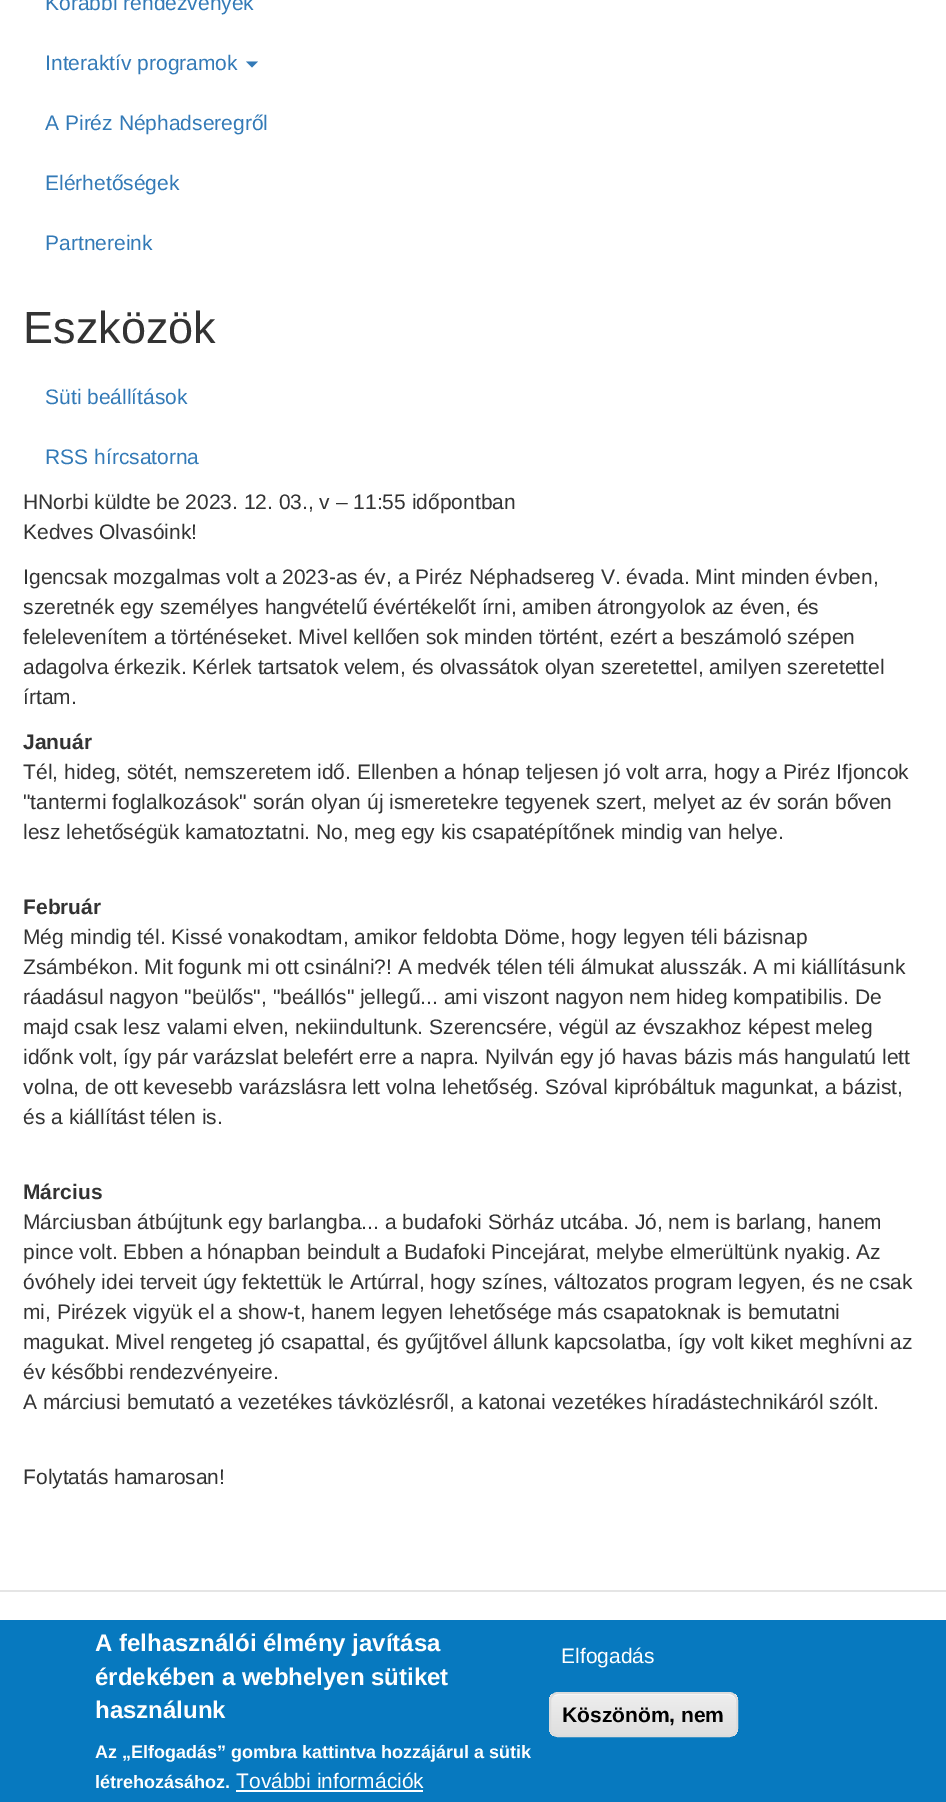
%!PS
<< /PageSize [946 1802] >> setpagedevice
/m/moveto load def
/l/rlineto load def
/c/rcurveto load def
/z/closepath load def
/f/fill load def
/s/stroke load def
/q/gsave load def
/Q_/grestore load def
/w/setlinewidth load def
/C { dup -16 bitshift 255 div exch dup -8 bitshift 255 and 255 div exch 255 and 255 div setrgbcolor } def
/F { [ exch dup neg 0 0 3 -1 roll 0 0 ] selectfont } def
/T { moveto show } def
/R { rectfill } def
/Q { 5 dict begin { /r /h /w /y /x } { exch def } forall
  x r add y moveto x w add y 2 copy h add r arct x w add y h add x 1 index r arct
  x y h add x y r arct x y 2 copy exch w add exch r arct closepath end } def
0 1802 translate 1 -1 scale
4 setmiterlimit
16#FFFFFF C
0 0 946 1802 R
/LiberationSans-Regular 21 F
16#337AB7 C
(Korábbi rendezvények) 45 10 T
(Interaktív programok) 45 70 T
246 61.5 m 12 0 l -6 6 l z f
(A Piréz Néphadseregről) 45 130 T
(Elérhetőségek) 45 190 T
(Partnereink) 45 250 T
/LiberationSans-Regular 45 F
16#333333 C
(Eszközök) 23 343 T
/LiberationSans-Regular 21 F
16#337AB7 C
(Süti beállítások) 45 404 T
(RSS hírcsatorna) 45 464 T
16#333333 C
(HNorbi küldte be 2023. 12. 03., v – 11:55 időpontban) 23 509 T
(Kedves Olvasóink!) 23 539 T
(Igencsak mozgalmas volt a 2023-as év, a Piréz Néphadsereg V. évada. Mint minden évben,) 23 584 T
(szeretnék egy személyes hangvételű évértékelőt írni, amiben átrongyolok az éven, és) 23 614 T
(felelevenítem a történéseket. Mivel kellően sok minden történt, ezért a beszámoló szépen) 23 644 T
(adagolva érkezik. Kérlek tartsatok velem, és olvassátok olyan szeretettel, amilyen szeretettel) 23 674 T
(írtam.) 23 704 T
/LiberationSans-Bold 21 F
(Január) 23 749 T
/LiberationSans-Regular 21 F
(Tél, hideg, sötét, nemszeretem idő. Ellenben a hónap teljesen jó volt arra, hogy a Piréz Ifjoncok) 23 779 T
("tantermi foglalkozások" során olyan új ismeretekre tegyenek szert, melyet az év során bőven) 23 809 T
(lesz lehetőségük kamatoztatni. No, meg egy kis csapatépítőnek mindig van helye.) 23 839 T
/LiberationSans-Bold 21 F
(Február) 23 914 T
/LiberationSans-Regular 21 F
(Még mindig tél. Kissé vonakodtam, amikor feldobta Döme, hogy legyen téli bázisnap) 23 944 T
(Zsámbékon. Mit fogunk mi ott csinálni?! A medvék télen téli álmukat alusszák. A mi kiállításunk) 23 974 T
(ráadásul nagyon "beülős", "beállós" jellegű... ami viszont nagyon nem hideg kompatibilis. De) 23 1004 T
(majd csak lesz valami elven, nekiindultunk. Szerencsére, végül az évszakhoz képest meleg) 23 1034 T
(időnk volt, így pár varázslat belefért erre a napra. Nyilván egy jó havas bázis más hangulatú lett) 23 1064 T
(volna, de ott kevesebb varázslásra lett volna lehetőség. Szóval kipróbáltuk magunkat, a bázist,) 23 1094 T
(és a kiállítást télen is.) 23 1124 T
/LiberationSans-Bold 21 F
(Március) 23 1199 T
/LiberationSans-Regular 21 F
(Márciusban átbújtunk egy barlangba... a budafoki Sörház utcába. Jó, nem is barlang, hanem) 23 1229 T
(pince volt. Ebben a hónapban beindult a Budafoki Pincejárat, melybe elmerültünk nyakig. Az) 23 1259 T
(óvóhely idei terveit úgy fektettük le Artúrral, hogy színes, változatos program legyen, és ne csak) 23 1289 T
(mi, Pirézek vigyük el a show-t, hanem legyen lehetősége más csapatoknak is bemutatni) 23 1319 T
(magukat. Mivel rengeteg jó csapattal, és gyűjtővel állunk kapcsolatba, így volt kiket meghívni az) 23 1349 T
(év későbbi rendezvényeire.) 23 1379 T
(A márciusi bemutató a vezetékes távközlésről, a katonai vezetékes híradástechnikáról szólt.) 23 1409 T
(Folytatás hamarosan!) 23 1484 T
16#E5E5E5 C
0 1590 946 2 R
16#0779BF C
0 1620 946 182 R
/LiberationSans-Bold 24 F
16#FFFFFF C
(A felhasználói élmény javítása) 95 1651 T
(érdekében a webhelyen sütiket) 95 1685 T
(használunk) 95 1718 T
/LiberationSans-Bold 18 F
(Az „Elfogadás” gombra kattintva hozzájárul a sütik) 95 1758 T
(létrehozásához.) 95 1788 T
/LiberationSans-Regular 21 F
(További információk) 236 1788 T
236 1790 187 2 R
(Elfogadás) 561 1663 T
q
549 1692 189 45 9 Q clip newpath
q 549 1694 m 189 0 l 0 42 l -189 0 l z clip newpath
<< /ShadingType 2 /ColorSpace /DeviceRGB /Coords [644 1694 644 1736] /Extend [true true] /Function << /FunctionType 3 /Domain [0 1] /Functions [<< /FunctionType 2 /Domain [0 1] /C0 [.929 .929 .929] /C1 [.929 .929 .929] /N 1 >> << /FunctionType 2 /Domain [0 1] /C0 [.929 .929 .929] /C1 [.875 .875 .875] /N 1 >>] /Bounds [.05] /Encode [0 1 0 1] >> >> shfill Q_
Q_
558 1695 m 171 0 l 4 0 7 3 7 7 c 0 28 l 0 3 l 0 -2 1 -3 1 -5 c 0 -26 l 0 -4 -4 -8 -8 -8 c -170 0 l -2 0 -4 1 -6 2 c 2 0 3 -1 5 -1 c z f
16#DCDCDC C
2 w
550 1693 187 43 8 Q s
/LiberationSans-Bold 21 F
16#000000 C
(Köszönöm, nem) 562 1722 T
showpage
